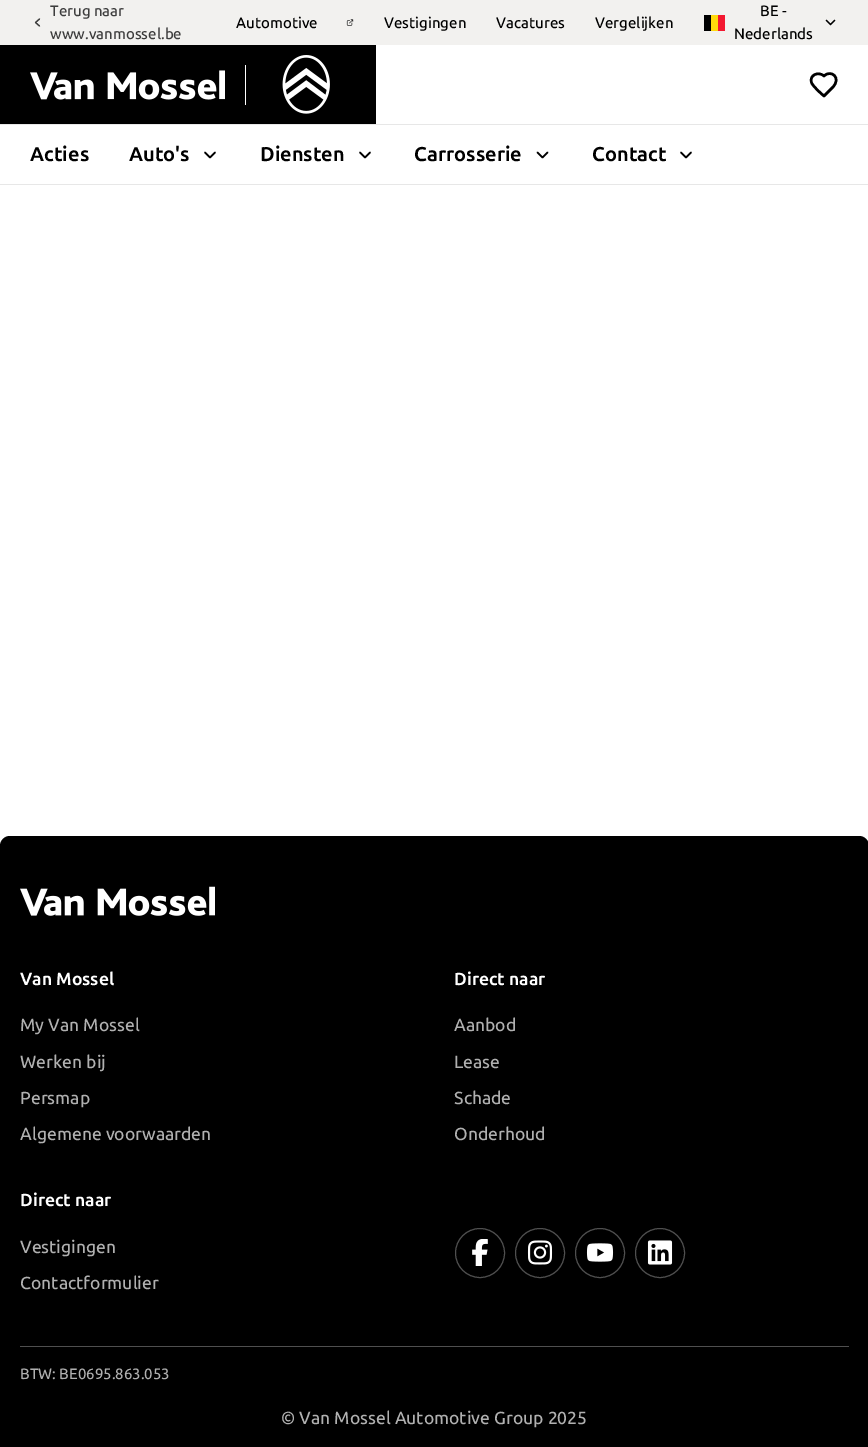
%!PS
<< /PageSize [868 1447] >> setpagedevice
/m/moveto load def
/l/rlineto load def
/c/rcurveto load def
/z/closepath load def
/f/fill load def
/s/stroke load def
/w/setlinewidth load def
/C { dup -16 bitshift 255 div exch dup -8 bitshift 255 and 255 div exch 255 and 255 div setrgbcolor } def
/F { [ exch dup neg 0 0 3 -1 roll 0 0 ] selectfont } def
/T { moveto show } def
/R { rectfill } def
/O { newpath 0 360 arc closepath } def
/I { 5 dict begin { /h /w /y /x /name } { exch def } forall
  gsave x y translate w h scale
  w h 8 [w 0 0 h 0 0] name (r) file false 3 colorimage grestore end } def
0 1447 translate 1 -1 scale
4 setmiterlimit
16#FFFFFF C
0 0 868 1447 R
16#F2F1EF C
0 0 868 45 R
/UbuntuSans-Medium 15 F
16#3D3D3D C
(Terug naar) 50 16 T
1.2 w
1 setlinecap
1 setlinejoin
39.5 26 m -4 -3.5 l 4 -3.5 l s
(www.vanmossel.be) 50 39 T
16#000000 C
(Automotive) 236 28 T
(1.rgb) 346 19 8 7 I
(Vestigingen) 384 28 T
(Vacatures) 496 28 T
(Vergelijken) 595 28 T
16#000001 C
704 15 7 16 R
16#FFD90C C
711 15 7 16 R
16#F31830 C
718 15 7 16 R
16#000000 C
(BE -) 760 16 T
(Nederlands) 734 39 T
1.3 w
826.5 20.5 m 4 4 l 4 -4 l s
0 45 376 79 R
(2.rgb) 30 70 195 30 I
16#FFFFFF C
245 65 1 40 R
(3.rgb) 282 55 48 59 I
16#000000 C
2.5 w
832.5 87.5 m 9.5 -9.5 -1.5 -18.5 -8.5 -11.5 c -5.5 -5 -15 -1 -12.5 6.5 c 1.5 4 9.5 11 12.5 13.5 c z s
16#E7E7E7 C
0 124 868 1 R
0 184 868 1 R
/UbuntuSans-Bold 20 F
16#000000 C
(Acties) 30 161 T
(Auto's) 129 161 T
1.7 w
205 152.5 m 5 5 l 5 -5 l s
(Diensten) 260 161 T
360 152.5 m 5 5 l 5 -5 l s
(Carrosserie) 414 161 T
537.5 152.5 m 5 5 l 5 -5 l s
(Contact) 592 161 T
681 152.5 m 5 5 l 5 -5 l s
10 836 m 849 0 l 5.5 0 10 4.5 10 10 c 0 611 l -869 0 l 0 -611 l 0 -5.5 4.5 -10 10 -10 c z f
(4.rgb) 20 886 195 30 I
/UbuntuSans-Bold 17.5 F
16#FFFFFF C
(Van Mossel) 20 985 T
/UbuntuSans-Medium 17.5 F
16#B0B0B0 C
(My Van Mossel) 20 1031 T
(Werken bij) 20 1068 T
(Persmap) 20 1104 T
(Algemene voorwaarden) 20 1140 T
/UbuntuSans-Bold 17.5 F
16#FFFFFF C
(Direct naar) 454 985 T
/UbuntuSans-Medium 17.5 F
16#B0B0B0 C
(Aanbod) 454 1031 T
(Lease) 454 1068 T
(Schade) 454 1104 T
(Onderhoud) 454 1140 T
/UbuntuSans-Bold 17.5 F
16#FFFFFF C
(Direct naar) 20 1206 T
/UbuntuSans-Medium 17.5 F
16#B0B0B0 C
(Vestigingen) 20 1253 T
(Contactformulier) 20 1289 T
16#4F4F4F C
1 w
0 setlinecap
0 setlinejoin
480 1253 24.5 O s
(5.rgb) 472 1239 16 27 I
540 1253 24.5 O s
(6.rgb) 527 1240 26 25 I
600 1253 24.5 O s
(7.rgb) 586 1243 28 19 I
660 1253 24.5 O s
(8.rgb) 647 1240 26 25 I
20 1346 829 1 R
/UbuntuSans-Medium 15 F
16#B0B0B0 C
(BTW: BE0695.863.053) 20 1379 T
/UbuntuSans-Medium 17.5 F
(© Van Mossel Automotive Group 2025) 281 1424 T
showpage
